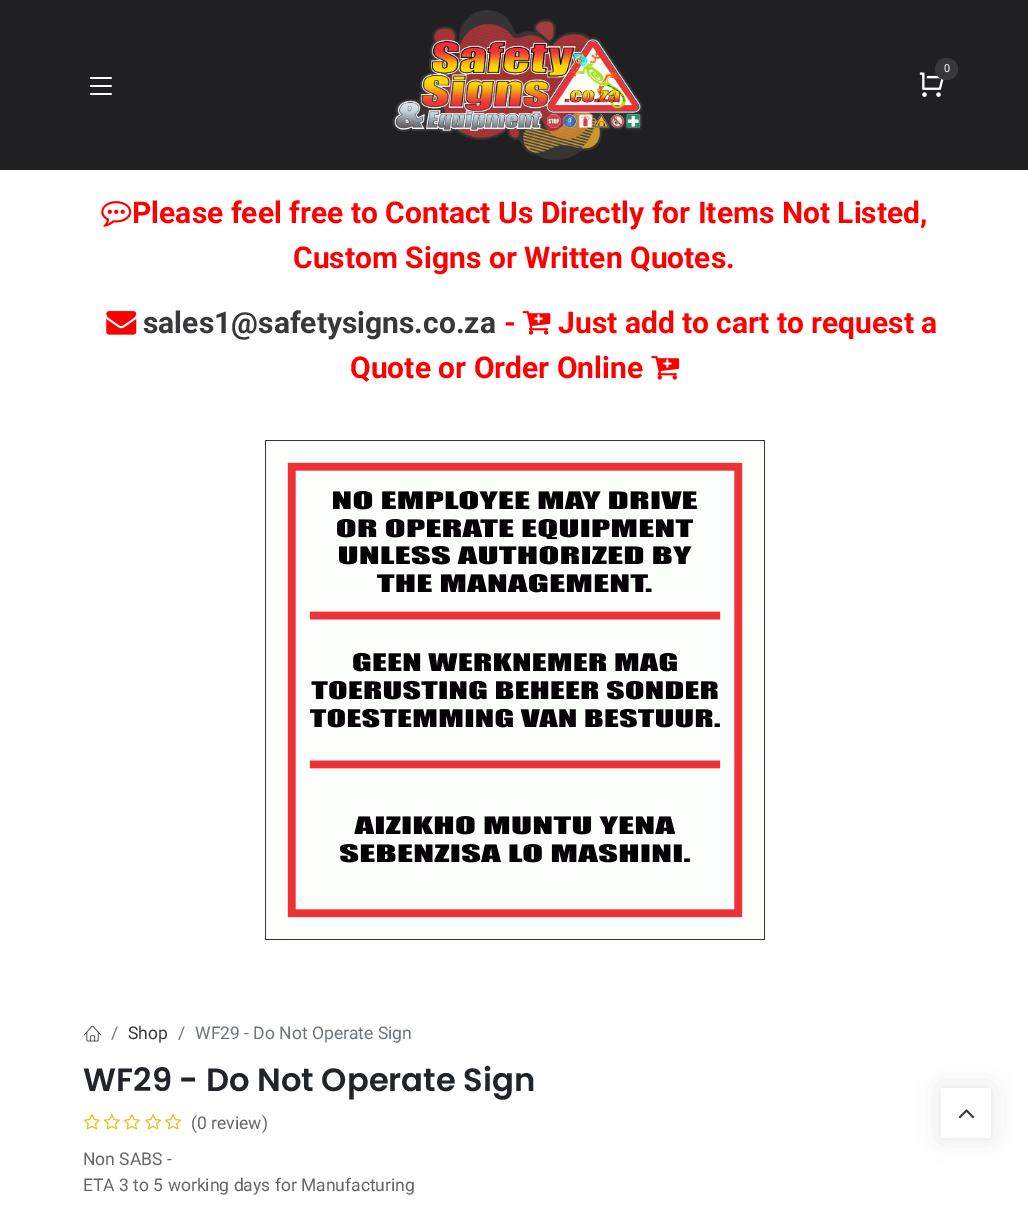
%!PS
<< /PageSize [1028 1206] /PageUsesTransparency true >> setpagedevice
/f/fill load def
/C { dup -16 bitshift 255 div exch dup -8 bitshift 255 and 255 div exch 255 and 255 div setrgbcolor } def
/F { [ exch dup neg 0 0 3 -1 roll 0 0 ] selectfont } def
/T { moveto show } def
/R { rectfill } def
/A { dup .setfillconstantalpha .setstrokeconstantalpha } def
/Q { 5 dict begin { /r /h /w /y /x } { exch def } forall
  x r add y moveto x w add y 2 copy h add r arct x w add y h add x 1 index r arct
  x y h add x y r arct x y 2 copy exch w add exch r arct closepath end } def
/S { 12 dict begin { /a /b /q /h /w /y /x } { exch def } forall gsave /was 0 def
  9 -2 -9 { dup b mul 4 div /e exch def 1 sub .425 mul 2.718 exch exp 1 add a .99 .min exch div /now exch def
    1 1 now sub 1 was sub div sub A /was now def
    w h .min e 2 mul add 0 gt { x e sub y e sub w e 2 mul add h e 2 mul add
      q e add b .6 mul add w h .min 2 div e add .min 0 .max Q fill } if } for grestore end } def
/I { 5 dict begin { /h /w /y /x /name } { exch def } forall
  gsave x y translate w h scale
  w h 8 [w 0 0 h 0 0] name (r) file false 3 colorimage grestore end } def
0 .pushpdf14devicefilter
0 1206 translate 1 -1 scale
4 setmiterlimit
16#FFFFFF C
0 0 1028 1206 R
16#202022 C
0 0 1028 170 R
(1.rgb) 392 10 251 150 I
(2.rgb) 919 72 25 25 I
16#38383B C
935 58 23 22 11 Q f
/Roboto-Regular 11 F
16#FFFFFF C
(0) 944 72 T
(3.rgb) 90 77 22 18 I
(4.rgb) 101 201 31 26 I
/Roboto-Bold 30 F
16#FF0000 C
(Please feel free to Contact Us Directly for Items Not Listed,) 132 223 T
(Custom Signs or Written Quotes.) 293 268 T
(5.rgb) 106 311 31 24 I
16#38383B C
(sales1@safetysigns.co.za) 143 333 T
16#FF0000 C
(-) 504 333 T
(6.rgb) 522 311 29 24 I
(Just add to cart to request a) 558 333 T
(Quote or Order Online) 350 378 T
(7.rgb) 651 356 29 24 I
(8.rgb) 265 440 500 500 I
(9.rgb) 83 1025 19 17 I
/Roboto-Regular 17.5 F
16#6C757D C
(/) 111 1039 T
16#38383B C
(Shop) 128 1039 T
16#6C757D C
(/) 178 1039 T
(WF29 - Do Not Operate Sign) 195 1039 T
/Poppins-SemiBold 32.2 F
16#212529 C
(WF29 - Do Not Operate Sign) 83 1091 T
(10.rgb) 83 1114 17 16 I
(10.rgb) 103 1114 17 16 I
(10.rgb) 123 1114 17 16 I
(11.rgb) 145 1114 17 16 I
(11.rgb) 165 1114 17 16 I
/Roboto-Regular 17.5 F
16#646669 C
(\(0 review\)) 191 1129 T
(Non SABS -) 83 1165 T
(ETA 3 to 5 working days for Manufacturing) 83 1191 T
16#000000 C
941 1088 50 50 0 12.5 .1 S
16#FFFFFF C
941 1088 50 50 R
(12.rgb) 958 1109 17 10 I
.poppdf14devicefilter showpage
